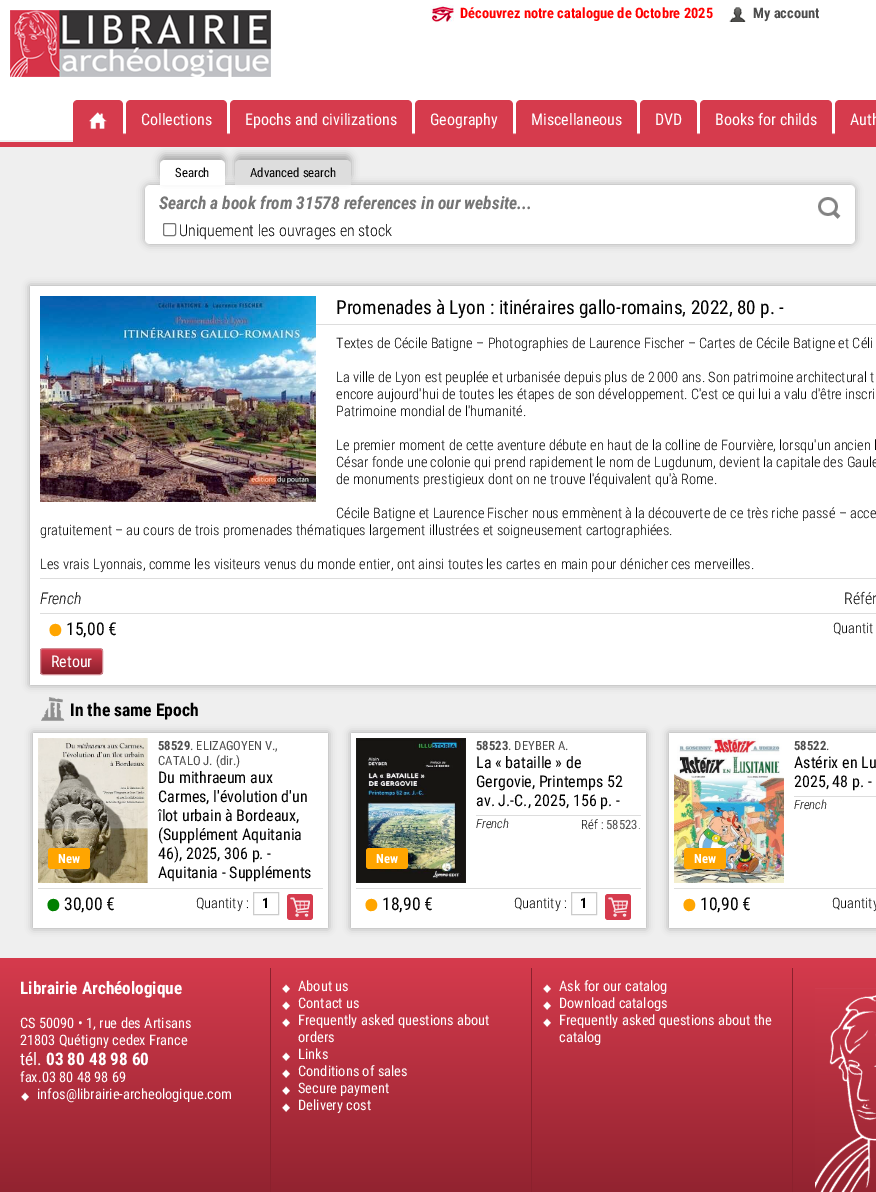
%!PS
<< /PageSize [876 1192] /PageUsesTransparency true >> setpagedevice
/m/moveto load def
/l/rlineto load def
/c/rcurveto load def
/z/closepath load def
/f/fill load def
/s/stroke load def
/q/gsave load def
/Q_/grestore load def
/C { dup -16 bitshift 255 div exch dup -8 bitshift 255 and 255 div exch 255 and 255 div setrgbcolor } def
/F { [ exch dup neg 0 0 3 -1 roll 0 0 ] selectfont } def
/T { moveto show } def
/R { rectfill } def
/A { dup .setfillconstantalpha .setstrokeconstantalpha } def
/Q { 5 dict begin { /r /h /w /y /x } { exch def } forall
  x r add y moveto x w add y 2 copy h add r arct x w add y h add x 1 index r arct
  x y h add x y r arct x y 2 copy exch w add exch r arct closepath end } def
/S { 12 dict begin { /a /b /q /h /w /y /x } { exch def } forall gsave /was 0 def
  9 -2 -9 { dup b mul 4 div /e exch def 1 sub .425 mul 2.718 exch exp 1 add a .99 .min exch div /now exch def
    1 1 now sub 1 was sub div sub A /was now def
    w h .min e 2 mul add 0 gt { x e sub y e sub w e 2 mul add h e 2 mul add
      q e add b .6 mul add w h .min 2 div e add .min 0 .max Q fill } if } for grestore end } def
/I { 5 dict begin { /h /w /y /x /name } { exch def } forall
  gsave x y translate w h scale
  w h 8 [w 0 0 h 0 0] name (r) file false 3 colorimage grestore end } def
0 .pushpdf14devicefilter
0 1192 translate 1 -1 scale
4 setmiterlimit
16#FFFFFF C
0 0 876 1192 R
(1.rgb) 10 10 261 67 I
(2.rgb) 430 5 24 17 I
/RobotoCondensed-Bold 14.4 F
16#FF0000 C
(Découvrez notre catalogue de Octobre 2025) 460 18 T
(3.rgb) 729 7 17 15 I
16#4D4D4D C
(My account) 753 18 T
16#EFEFEF C
0 140 876 818 R
q 73 133 m 803 0 l 0 9 l -803 0 l z clip newpath
<< /ShadingType 2 /ColorSpace /DeviceRGB /Coords [498 80 498 142] /Extend [true true] /Function << /FunctionType 3 /Domain [0 1] /Functions [<< /FunctionType 2 /Domain [0 1] /C0 [1 1 1] /C1 [1 1 1] /N 1 >> << /FunctionType 2 /Domain [0 1] /C0 [1 1 1] /C1 [.839 .231 .302] /N 1 >> << /FunctionType 2 /Domain [0 1] /C0 [.839 .231 .302] /C1 [.839 .231 .302] /N 1 >>] /Bounds [.85 .88] /Encode [0 1 0 1 0 1] >> >> shfill Q_
16#D63B4D C
78 100 m 40 0 l 3 0 5 2 5 5 c 0 37 l -50 0 l 0 -37 l 0 -3 2 -5 5 -5 c z f
(4.rgb) 89 112 18 17 I
131 100 m 91 0 l 3 0 5 2 5 5 c 0 37 l -101 0 l 0 -37 l 0 -3 2 -5 5 -5 c z f
/RobotoCondensed-Regular 16 F
16#FFFFFF C
(Collections) 141 125 T
16#D63B4D C
235 100 m 172 0 l 3 0 5 2 5 5 c 0 37 l -182 0 l 0 -37 l 0 -3 2 -5 5 -5 c z f
16#FFFFFF C
(Epochs and civilizations) 245 125 T
16#D63B4D C
420 100 m 88 0 l 3 0 5 2 5 5 c 0 37 l -98 0 l 0 -37 l 0 -3 2 -5 5 -5 c z f
16#FFFFFF C
(Geography) 430 125 T
16#D63B4D C
521 100 m 111 0 l 3 0 5 2 5 5 c 0 37 l -121 0 l 0 -37 l 0 -3 2 -5 5 -5 c z f
16#FFFFFF C
(Miscellaneous) 531 125 T
16#D63B4D C
645 100 m 47 0 l 3 0 5 2 5 5 c 0 37 l -57 0 l 0 -37 l 0 -3 2 -5 5 -5 c z f
16#FFFFFF C
(DVD) 655 125 T
16#D63B4D C
705 100 m 122 0 l 3 0 5 2 5 5 c 0 37 l -132 0 l 0 -37 l 0 -3 2 -5 5 -5 c z f
16#FFFFFF C
(Books for childs) 715 125 T
16#D63B4D C
840 100 m 36 0 l 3 0 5 2 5 5 c 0 37 l -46 0 l 0 -37 l 0 -3 2 -5 5 -5 c z f
16#FFFFFF C
(Auth) 850 125 T
16#000000 C
145 185 710 59 5 4 .28 S
16#FFFFFF C
145 185 710 59 5 Q f
16#000000 C
160 155 65 25 5 4 .28 S
16#FFFFFF C
165 160 m 55 0 l 3 0 5 2 5 5 c 0 20 l -65 0 l 0 -20 l 0 -3 2 -5 5 -5 c z f
16#000000 C
235 155 116 25 5 4 .28 S
16#D63B4D C
0 142 876 5 R
/RobotoCondensed-Regular 12.75 F
16#000000 C
(Search) 175 177 T
16#DDDDDD C
240 160 m 106 0 l 3 0 5 2 5 5 c 0 20 l -116 0 l 0 -20 l 0 -3 2 -5 5 -5 c z f
16#000000 C
(Advanced search) 250 177 T
/RobotoCondensed-BoldItalic 17.6 F
16#757575 C
(Search a book from 31578 references in our website...) 159 209 T
(5.rgb) 818 197 23 22 I
16#767676 C
163.5 223.5 12 12 1.5 Q s
/RobotoCondensed-Light 16 F
16#000000 C
(Uniquement les ouvrages en stock) 179 236 T
(7.rgb) 41 697 24 24 I
30 286 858 399 0 4 .3 S
16#FFFFFF C
30 286 846 399 R
(6.rgb) 40 296 276 206 I
16#DDDDDD C
316 324 560 1 R
/RobotoCondensed-Regular 19.2 F
16#000000 C
(Promenades à Lyon : itinéraires gallo-romains, 2022, 80 p. -) 336 314 T
16#DDDDDD C
40 578 836 1 R
/RobotoCondensed-Light 14.4 F
16#000000 C
(Textes de Cécile Batigne – Photographies de Laurence Fischer – Cartes de Cécile Batigne et Céli) 336 348 T
(La ville de Lyon est peuplée et urbanisée depuis plus de 2 000 ans. Son patrimoine architectural t) 336 382 T
(encore aujourd'hui de toutes les étapes de son développement. C'est ce qui lui a valu d'être inscri) 336 399 T
(Patrimoine mondial de l'humanité.) 336 416 T
(Le premier moment de cette aventure débute en haut de la colline de Fourvière, lorsqu'un ancien l) 336 450 T
(César fonde une colonie qui prend rapidement le nom de Lugdunum, devient la capitale des Gaule) 336 467 T
(de monuments prestigieux dont on ne trouve l'équivalent qu'à Rome.) 336 484 T
(Cécile Batigne et Laurence Fischer nous emmènent à la découverte de ce très riche passé – acce) 336 518 T
(gratuitement – au cours de trois promenades thématiques largement illustrées et soigneusement cartographiées.) 40 535 T
(Les vrais Lyonnais, comme les visiteurs venus du monde entier, ont ainsi toutes les cartes en main pour dénicher ces merveilles.) 40 569 T
/RobotoCondensed-LightItalic 16 F
(French) 40 604 T
/RobotoCondensed-Light 16 F
(Référ) 844 604 T
16#DDDDDD C
40 613 836 1 R
/RobotoCondensed-Light 64 F
16#FFA500 C
(•) 45 653 T
/RobotoCondensed-Regular 17.6 F
16#000000 C
(15,00 €) 66 635 T
/RobotoCondensed-Light 14.4 F
(Quantit) 833 633 T
q
40 648 63 27 3 Q clip newpath
q 40 649 m 63 0 l 0 25 l -63 0 l z clip newpath
<< /ShadingType 2 /ColorSpace /DeviceRGB /Coords [72 649 72 674] /Extend [true true] /Function << /FunctionType 2 /Domain [0 1] /C0 [.839 .231 .302] /C1 [.545 .129 .176] /N 1 >> >> shfill Q_
Q_
16#D18B93 C
40.5 648.5 62 26 2.5 Q s
/RobotoCondensed-Regular 16 F
16#FFFFFF C
(Retour) 51 667 T
/RobotoCondensed-Bold 17.6 F
16#000000 C
(In the same Epoch) 70 716 T
33 733 295 195 0 4 .3 S
16#FFFFFF C
33 733 295 195 R
(8.rgb) 38 738 110 145 I
16#FFA500 C
48 848 42 21 3 Q f
/RobotoCondensed-Bold 12.75 F
16#FFFFFF C
(New) 58 863 T
16#4D4D4D C
(58529) 158 750 T
/RobotoCondensed-Regular 12.75 F
(. ELIZAGOYEN V.,) 190 750 T
(CATALO J. \(dir.\)) 158 765 T
/RobotoCondensed-Regular 16 F
16#000000 C
(Du mithraeum aux) 158 783 T
(Carmes, l'évolution d'un) 158 802 T
(îlot urbain à Bordeaux,) 158 821 T
(\(Supplément Aquitania) 158 840 T
(46\), 2025, 306 p. -) 158 859 T
(Aquitania - Suppléments) 158 878 T
16#DDDDDD C
38 888 285 1 R
/RobotoCondensed-Light 64 F
16#008000 C
(•) 43 928 T
/RobotoCondensed-Regular 17.6 F
16#000000 C
(30,00 €) 64 910 T
/RobotoCondensed-Light 14.4 F
(Quantity :) 196 908 T
16#CCCCCC C
253.5 892.5 25 22 rectstroke
/RobotoCondensed-Bold 14.4 F
16#000000 C
(1) 262 908 T
16#D63B4D C
287 894 26 26 3 Q f
(9.rgb) 290 897 20 20 I
16#000000 C
351 733 295 195 0 4 .3 S
16#FFFFFF C
351 733 295 195 R
/RobotoCondensed-Bold 12.75 F
16#4D4D4D C
(58523) 476 750 T
/RobotoCondensed-Regular 12.75 F
(. DEYBER A.) 508 750 T
/RobotoCondensed-Regular 16 F
16#000000 C
(La « bataille » de) 476 768 T
(Gergovie, Printemps 52) 476 787 T
(av. J.-C., 2025, 156 p. -) 476 806 T
16#DDDDDD C
476 815 165 1 R
/RobotoCondensed-LightItalic 12.75 F
16#000000 C
(French) 476 828 T
/RobotoCondensed-Light 12.75 F
(Réf :) 581 829 T
/RobotoCondensed-Regular 12.75 F
16#4D4D4D C
(58523) 606 829 T
/RobotoCondensed-Light 12.75 F
(.) 638 829 T
(10.rgb) 356 738 110 145 I
16#FFA500 C
366 848 42 21 3 Q f
/RobotoCondensed-Bold 12.75 F
16#FFFFFF C
(New) 376 863 T
16#DDDDDD C
356 888 285 1 R
/RobotoCondensed-Light 64 F
16#FFA500 C
(•) 361 928 T
/RobotoCondensed-Regular 17.6 F
16#000000 C
(18,90 €) 382 910 T
/RobotoCondensed-Light 14.4 F
(Quantity :) 514 908 T
16#CCCCCC C
571.5 892.5 25 22 rectstroke
/RobotoCondensed-Bold 14.4 F
16#000000 C
(1) 580 908 T
16#D63B4D C
605 894 26 26 3 Q f
(9.rgb) 608 897 20 20 I
16#000000 C
669 733 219 195 0 4 .3 S
16#FFFFFF C
669 733 207 195 R
/RobotoCondensed-Bold 12.75 F
16#4D4D4D C
(58522) 794 750 T
/RobotoCondensed-Regular 12.75 F
(.) 826 750 T
/RobotoCondensed-Regular 16 F
16#000000 C
(Astérix en Lu) 794 768 T
(2025, 48 p. -) 794 787 T
16#DDDDDD C
794 796 82 1 R
/RobotoCondensed-LightItalic 12.75 F
16#000000 C
(French) 794 809 T
(11.rgb) 674 738 110 145 I
16#FFA500 C
684 848 42 21 3 Q f
/RobotoCondensed-Bold 12.75 F
16#FFFFFF C
(New) 694 863 T
16#DDDDDD C
674 888 202 1 R
/RobotoCondensed-Light 64 F
16#FFA500 C
(•) 679 928 T
/RobotoCondensed-Regular 17.6 F
16#000000 C
(10,90 €) 700 910 T
/RobotoCondensed-Light 14.4 F
(Quantity) 832 908 T
q 0 958 m 876 0 l 0 234 l -876 0 l z clip newpath
<< /ShadingType 2 /ColorSpace /DeviceRGB /Coords [500 958 500 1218] /Extend [true true] /Function << /FunctionType 2 /Domain [0 1] /C0 [.839 .231 .302] /C1 [.545 .129 .176] /N 1 >> >> shfill Q_
16#8B212D C
270 968 1 224 R
/RobotoCondensed-Bold 17.25 F
16#FFFFFF C
(Librairie Archéologique) 20 994 T
/RobotoCondensed-Regular 14.4 F
(CS 50090 • 1, rue des Artisans) 20 1028 T
(21803 Quétigny cedex France) 20 1045 T
/RobotoCondensed-Regular 17.25 F
(tél.) 20 1065 T
/RobotoCondensed-Bold 17.25 F
(03 80 48 98 60) 46 1065 T
/RobotoCondensed-Regular 14.4 F
(fax.03 80 48 98 69) 20 1082 T
(12.rgb) 21 1092 8 9 I
(infos@librairie-archeologique.com) 37 1099 T
16#8B212D C
531 968 1 224 R
(13.rgb) 282 984 8 9 I
16#FFFFFF C
(About us) 298 991 T
(14.rgb) 282 1001 8 9 I
(Contact us) 298 1008 T
(15.rgb) 282 1018 8 9 I
(Frequently asked questions about) 298 1025 T
(orders) 298 1042 T
(16.rgb) 282 1052 8 9 I
(Links) 298 1059 T
(17.rgb) 282 1069 8 9 I
(Conditions of sales) 298 1076 T
(18.rgb) 282 1086 8 9 I
(Secure payment) 298 1093 T
(19.rgb) 282 1103 8 9 I
(Delivery cost) 298 1110 T
16#8B212D C
792 968 1 224 R
(13.rgb) 543 984 8 9 I
16#FFFFFF C
(Ask for our catalog) 559 991 T
(14.rgb) 543 1001 8 9 I
(Download catalogs) 559 1008 T
(15.rgb) 543 1018 8 9 I
(Frequently asked questions about the) 559 1025 T
(catalog) 559 1042 T
(20.rgb) 815 988 61 204 I
.poppdf14devicefilter showpage
